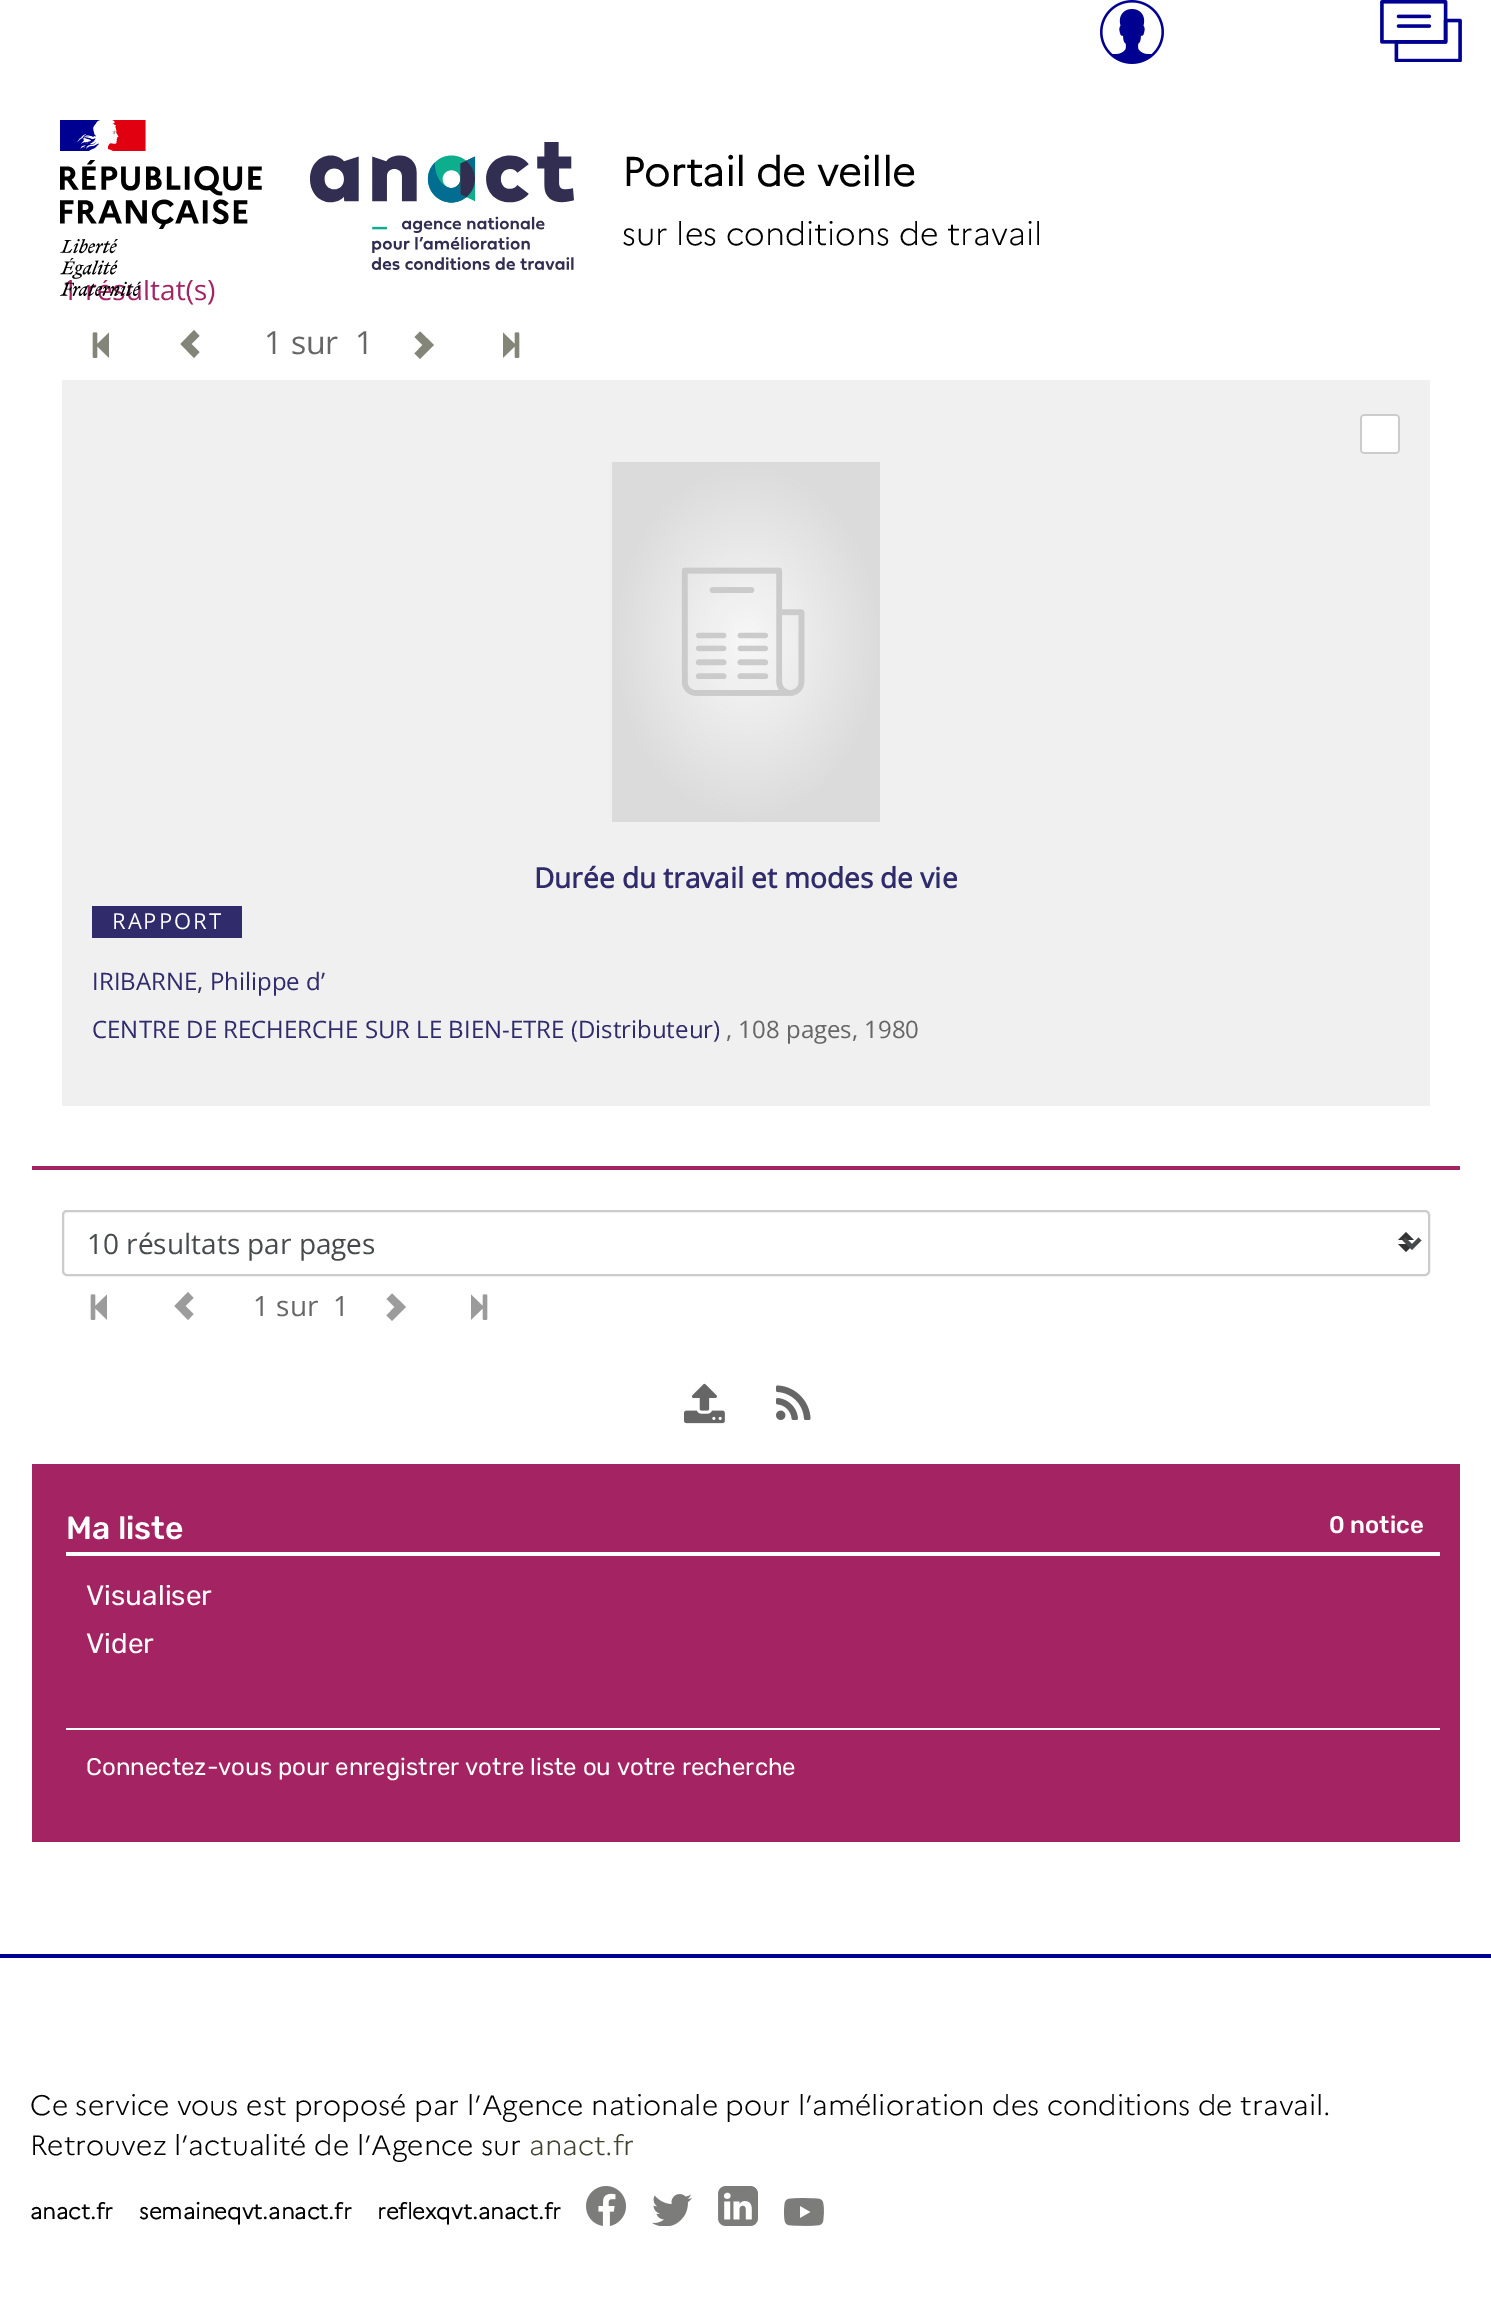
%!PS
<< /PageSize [1491 2301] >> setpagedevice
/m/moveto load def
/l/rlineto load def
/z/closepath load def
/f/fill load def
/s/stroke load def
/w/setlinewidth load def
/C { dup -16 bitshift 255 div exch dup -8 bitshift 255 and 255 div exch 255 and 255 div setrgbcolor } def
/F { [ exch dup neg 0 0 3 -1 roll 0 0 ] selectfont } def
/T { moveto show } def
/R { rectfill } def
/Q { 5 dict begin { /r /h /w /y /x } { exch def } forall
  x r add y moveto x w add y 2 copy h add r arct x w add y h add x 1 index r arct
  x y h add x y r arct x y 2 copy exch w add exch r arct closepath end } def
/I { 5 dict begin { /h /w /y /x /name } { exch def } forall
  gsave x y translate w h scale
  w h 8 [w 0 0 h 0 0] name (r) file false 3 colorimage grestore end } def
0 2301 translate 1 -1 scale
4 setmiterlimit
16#FFFFFF C
0 0 1491 2301 R
/OpenSans-Regular 28 F
16#A42363 C
(1 résultat\(s\)) 62 300 T
16#FFFFFF C
105 278 43 2 R
(1.rgb) 1100 0 64 64 I
(2.rgb) 1380 0 82 62 I
(3.rgb) 60 120 202 176 I
(4.rgb) 310 142 264 128 I
/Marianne-Bold 40 F
16#000000 C
(Portail de veille) 622 186 T
/Marianne-Light 32 F
(sur les conditions de travail) 622 245 T
(5.rgb) 92 332 17 26 I
16#848579 C
180.5 344 m 13.5 14 l 5.5 -6 l -8 -8 l 8 -8 l -5.5 -6 l z f
/OpenSans-Regular 32 F
16#666666 C
(1 sur  1) 264 354 T
16#848579 C
414.5 353.5 m 8 -8.5 l -8 -8 l 5.5 -5.5 l 14 13.5 l -14 14 l z f
(6.rgb) 503 332 17 26 I
16#F0F0F0 C
62 380 1368 726 R
(7.rgb) 612 462 268 360 I
(8.rgb) 1360 414 40 40 I
/OpenSans-Bold 28 F
16#302B6B C
(Durée du travail et modes de vie) 534 888 T
92 906 150 32 R
/OpenSans-Regular 22 F
16#FFFFFF C
112 929 m 2 0 (RAPPORT) ashow
/OpenSans-Regular 24 F
16#302B6B C
(IRIBARNE, Philippe d’) 92 990 T
(CENTRE DE RECHERCHE SUR LE BIEN-ETRE \(Distributeur\)) 92 1038 T
16#666666 C
(, 108 pages, 1980) 726 1038 T
16#A42363 C
32 1166 1428 4 R
16#333333 C
1406 1232 m -8 8 l 16 0 l z 1406 1252 m -8 -8 l 16 0 l z f
16#CCCCCC C
2 w
63 1211 1366 64 4 Q s
16#464A4C C
4 w
1404 1239 m 8 8 l 8 -8 l s
/OpenSans-Regular 28 F
(10 résultats par pages) 87 1254 T
(9.rgb) 90 1294 17 26 I
16#9C9C9C C
174.5 1306 m 13.5 14 l 5.5 -6 l -8 -8 l 8 -8 l -5.5 -6 l z f
16#666666 C
(1 sur  1) 253 1316 T
16#9C9C9C C
386.5 1315.5 m 8 -8.5 l -8 -8 l 5.5 -5.5 l 14 13.5 l -14 14 l z f
(10.rgb) 471 1294 17 26 I
(11.rgb) 684 1383 41 41 I
(12.rgb) 776 1385 35 35 I
16#A42363 C
32 1464 1428 378 R
16#FFFFFF C
66 1552 1374 4 R
/Rubik-Medium 32 F
(Ma liste) 66 1539 T
/Rubik-Medium 24 F
(0 notice) 1329 1533 T
/Rubik-Regular 28 F
(Visualiser) 86 1605 T
(Vider) 86 1653 T
66 1728 1374 2 R
/Rubik-Regular 24 F
(Connectez-vous pour enregistrer votre liste ou votre recherche) 86 1775 T
16#000091 C
0 1954 1491 4 R
/Marianne-Light 28 F
16#000000 C
(Ce service vous est proposé par l’Agence nationale pour l’amélioration des conditions de travail.) 30 2115 T
(Retrouvez l’actualité de l’Agence sur) 30 2155 T
16#424331 C
(anact.fr) 529 2155 T
/Marianne-Bold 22 F
16#000000 C
(anact.fr) 30 2219 T
(semaineqvt.anact.fr) 139 2219 T
(reflexqvt.anact.fr) 377 2219 T
(13.rgb) 586 2186 40 40 I
(14.rgb) 652 2194 40 32 I
(15.rgb) 718 2186 40 40 I
(16.rgb) 784 2198 40 28 I
showpage
